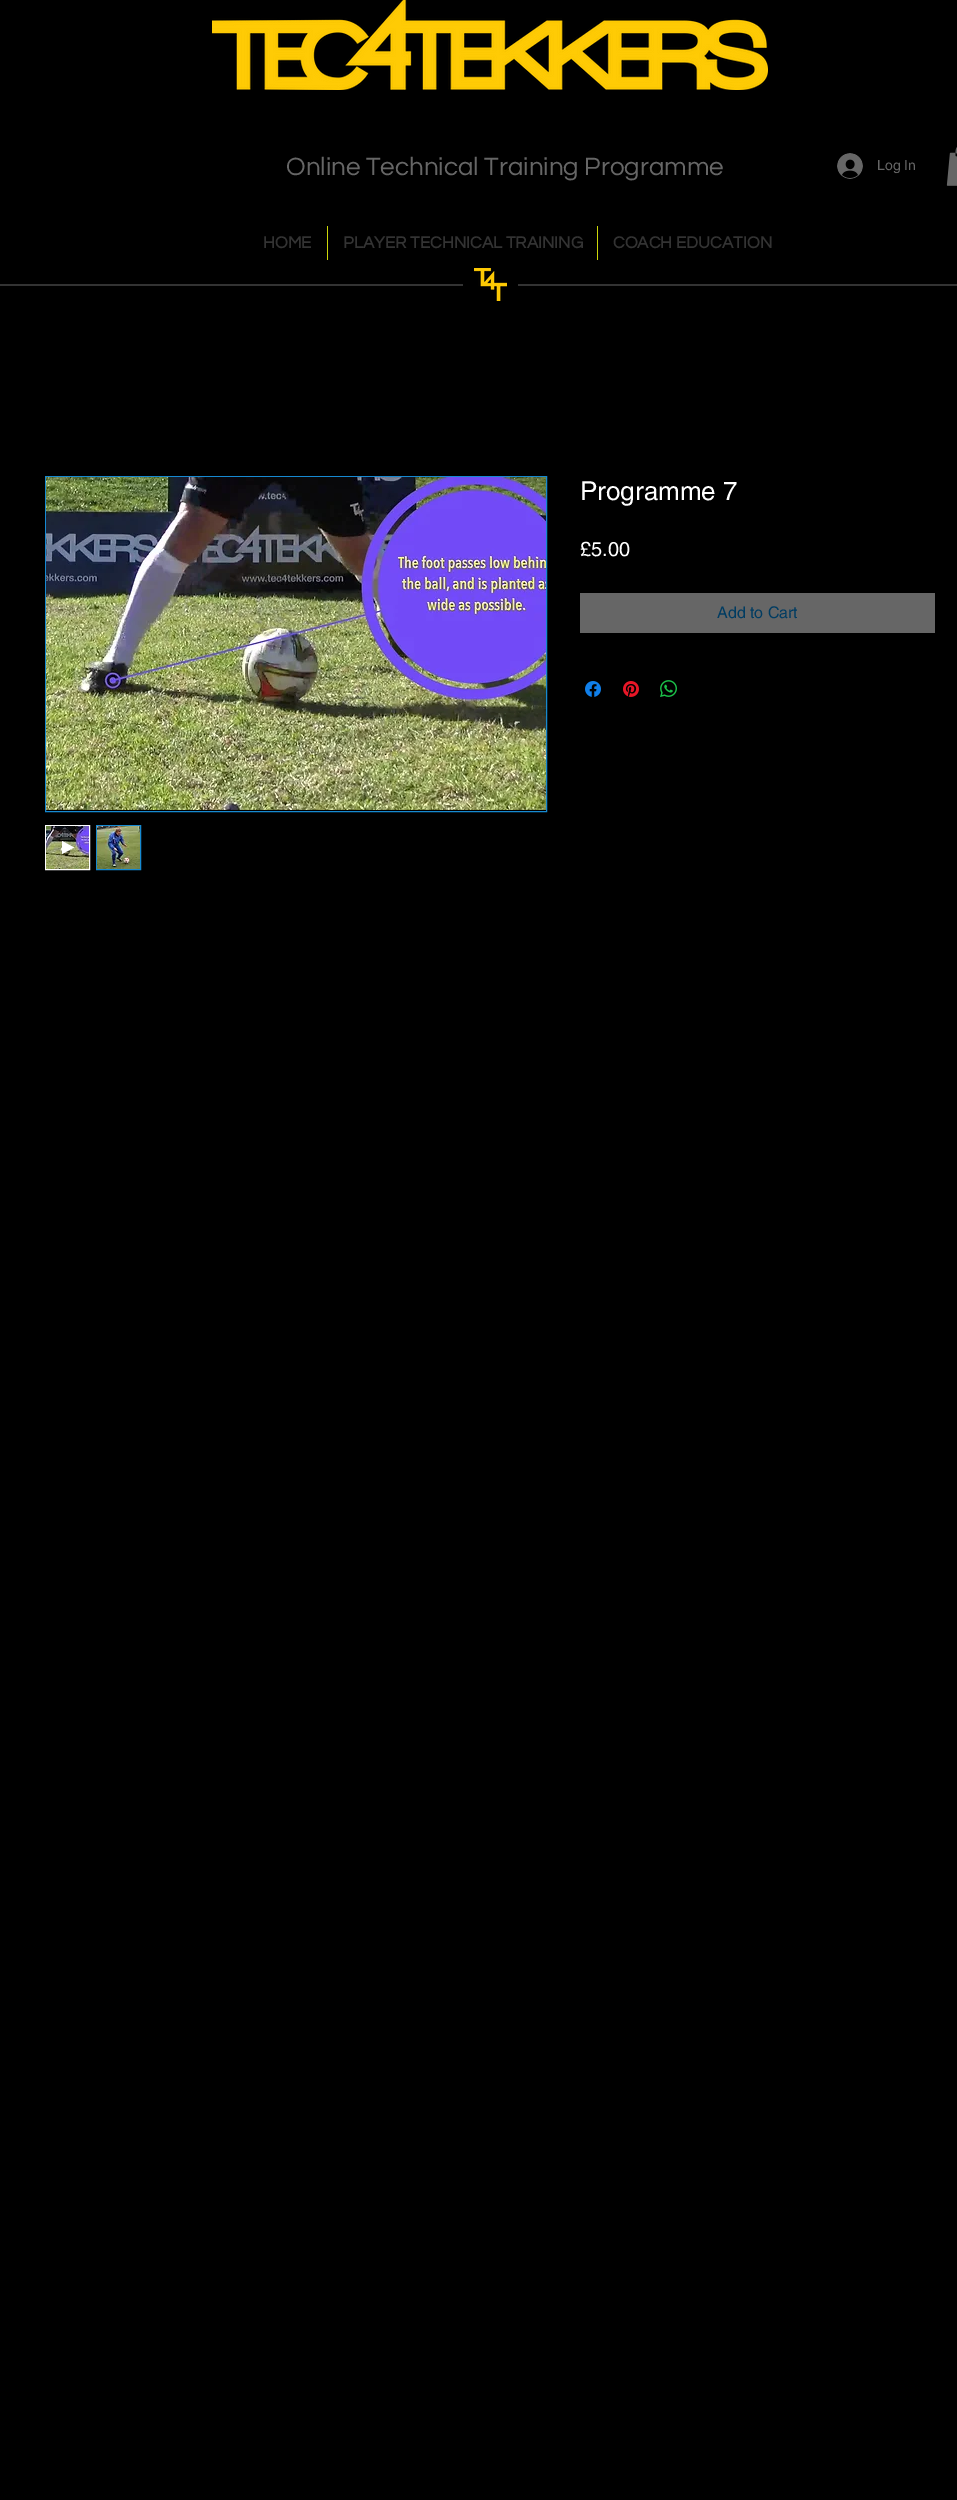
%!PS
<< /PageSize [957 2500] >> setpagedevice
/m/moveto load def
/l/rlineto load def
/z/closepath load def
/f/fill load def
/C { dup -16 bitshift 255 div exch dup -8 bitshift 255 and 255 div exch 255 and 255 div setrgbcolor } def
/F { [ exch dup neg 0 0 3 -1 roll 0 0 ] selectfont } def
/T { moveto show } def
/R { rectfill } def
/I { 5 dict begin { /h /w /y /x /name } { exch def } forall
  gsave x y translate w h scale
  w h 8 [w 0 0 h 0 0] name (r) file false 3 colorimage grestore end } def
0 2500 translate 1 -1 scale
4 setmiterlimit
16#000000 C
0 0 957 2500 R
(1.rgb) 212 0 556 90 I
/Questrial-Regular 26 F
16#666666 C
(Online Technical Training Programme) 286 175 T
(2.rgb) 837 153 26 26 I
/helvetica-Regular 14 F
(Log In) 877 170 T
(3.rgb) 946 147 11 39 I
/Questrial-Bold 17 F
16#333333 C
(HOME) 263 248 T
16#CCD609 C
327 226 1 34 R
16#333333 C
(PLAYER TECHNICAL TRAINING) 343 248 T
16#CCD609 C
597 226 1 34 R
16#333333 C
(COACH EDUCATION) 613 248 T
0 284 463 2 R
(4.rgb) 474 268 33 33 I
518 284 439 2 R
16#1689D1 C
45.5 476.5 501 335 rectstroke
(5.rgb) 46 477 500 333 I
16#FFFFFF C
45.5 825.5 44 44 rectstroke
(6.rgb) 46 826 43 43 I
62 841 m 0 13 l 12 -6.5 l z f
16#1689D1 C
96.5 825.5 44 44 rectstroke
(7.rgb) 97 826 43 43 I
/helvetica-Regular 26 F
16#FFFFFF C
(Programme 7) 580 500 T
/helvetica-Regular 20 F
(£5.00) 580 556 T
16#666666 C
580 593 355 40 R
/helvetica-Regular 16 F
16#003C62 C
(Add to Cart) 717 618 T
(8.rgb) 585 681 16 16 I
(9.rgb) 623 681 16 16 I
(10.rgb) 660 680 17 17 I
showpage
